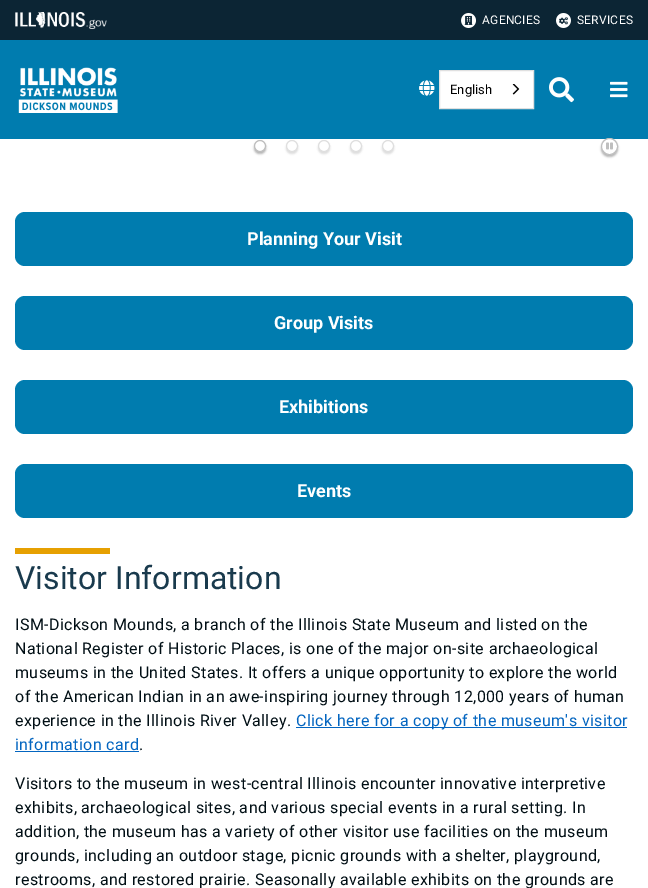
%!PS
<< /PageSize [648 888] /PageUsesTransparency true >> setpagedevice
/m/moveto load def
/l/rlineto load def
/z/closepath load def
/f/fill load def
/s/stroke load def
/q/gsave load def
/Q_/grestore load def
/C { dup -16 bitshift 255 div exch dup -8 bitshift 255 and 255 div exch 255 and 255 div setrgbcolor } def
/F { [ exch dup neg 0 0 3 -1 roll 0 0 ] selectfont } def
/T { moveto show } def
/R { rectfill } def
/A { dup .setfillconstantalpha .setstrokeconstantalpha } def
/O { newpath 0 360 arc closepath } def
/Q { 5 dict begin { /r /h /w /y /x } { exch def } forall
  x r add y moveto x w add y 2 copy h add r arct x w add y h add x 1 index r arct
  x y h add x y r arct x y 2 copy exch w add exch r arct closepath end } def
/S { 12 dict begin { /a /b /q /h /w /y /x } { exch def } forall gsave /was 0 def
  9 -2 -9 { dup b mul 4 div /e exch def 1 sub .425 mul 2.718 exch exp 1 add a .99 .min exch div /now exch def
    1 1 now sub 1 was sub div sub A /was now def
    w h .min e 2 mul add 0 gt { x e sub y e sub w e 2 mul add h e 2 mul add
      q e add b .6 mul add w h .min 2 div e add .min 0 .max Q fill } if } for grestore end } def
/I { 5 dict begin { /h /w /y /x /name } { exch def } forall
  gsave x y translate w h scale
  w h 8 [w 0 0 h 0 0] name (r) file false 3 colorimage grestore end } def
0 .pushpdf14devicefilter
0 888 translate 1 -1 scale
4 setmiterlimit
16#FFFFFF C
0 0 648 888 R
16#0C2534 C
0 0 648 40 R
(1.rgb) 15 12 92 17 I
(2.rgb) 461 13 15 15 I
/Roboto-Regular 12 F
16#FFFFFF C
482 24 m .25 0 (AGENCIES) ashow
(3.rgb) 556 13 15 15 I
577 24 m .25 0 (SERVICES) ashow
16#007CAF C
0 40 648 99 R
(4.rgb) 18 67 100 46 I
(5.rgb) 419 80 16 16 I
16#FFFFFF C
439.5 70.5 m 94 0 l 0 38 l -94 0 l z q f Q_
16#E0E0E0 C
s
/Roboto-Regular 13 F
16#000000 C
(English) 450 94 T
(6.rgb) 512 84 8 11 I
(7.rgb) 549 77 25 26 I
(8.rgb) 610 81 18 17 I
254 142 12 12 6 1 .29 S
16#FFFFFF C
260 146 5.5 O q f Q_
16#BEBEBE C
s
16#808080 C
286 142 12 12 6 1 .29 S
16#FFFFFF C
292 146 5.5 O q f Q_
16#DFDFDF C
s
16#808080 C
318 142 12 12 6 1 .29 S
16#FFFFFF C
324 146 5.5 O q f Q_
16#DFDFDF C
s
16#808080 C
350 142 12 12 6 1 .29 S
16#FFFFFF C
356 146 5.5 O q f Q_
16#DFDFDF C
s
16#808080 C
382 142 12 12 6 1 .29 S
16#FFFFFF C
388 146 5.5 O q f Q_
16#DFDFDF C
s
16#000000 C
601 140 17 17 8.5 1 .29 S
16#FFFFFF C
609.5 146.5 8 O q f Q_
16#BEBEBE C
s
(9.rgb) 606 142 7 8 I
16#007CAF C
15 212 618 54 10 Q f
/Roboto-Bold 18 F
16#FFFFFF C
(Planning Your Visit) 247 245 T
16#007CAF C
15 296 618 54 10 Q f
16#FFFFFF C
(Group Visits) 274 329 T
16#007CAF C
15 380 618 54 10 Q f
16#FFFFFF C
(Exhibitions) 279 413 T
16#007CAF C
15 464 618 54 10 Q f
16#FFFFFF C
(Events) 297 497 T
16#E6A001 C
15 548 95 6 R
/Roboto-Regular 32 F
16#193A4D C
(Visitor Information) 15 589 T
/Roboto-Regular 16 F
16#000E14 C
15 630 m .38 0 (ISM-Dickson Mounds, a branch of the Illinois State Museum and listed on the) ashow
15 654 m .38 0 (National Register of Historic Places, is one of the major on-site archaeological) ashow
15 678 m .38 0 (museums in the United States. It offers a unique opportunity to explore the world) ashow
15 702 m .38 0 (of the American Indian in an awe-inspiring journey through 12,000 years of human) ashow
15 726 m .38 0 (experience in the Illinois River Valley.) ashow
16#0365C0 C
296 727 331 1 R
296 726 m .38 0 (Click here for a copy of the museum's visitor) ashow
15 750 m .38 0 (information card) ashow
15 751 124 1 R
16#000E14 C
139 750 m .38 0 (.) ashow
15 789 m .38 0 (Visitors to the museum in west-central Illinois encounter innovative interpretive) ashow
15 813 m .38 0 (exhibits, archaeological sites, and various special events in a rural setting. In) ashow
15 837 m .38 0 (addition, the museum has a variety of other visitor use facilities on the museum) ashow
15 861 m .38 0 (grounds, including an outdoor stage, picnic grounds with a shelter, playground,) ashow
15 885 m .38 0 (restrooms, and restored prairie. Seasonally available exhibits on the grounds are) ashow
.poppdf14devicefilter showpage
